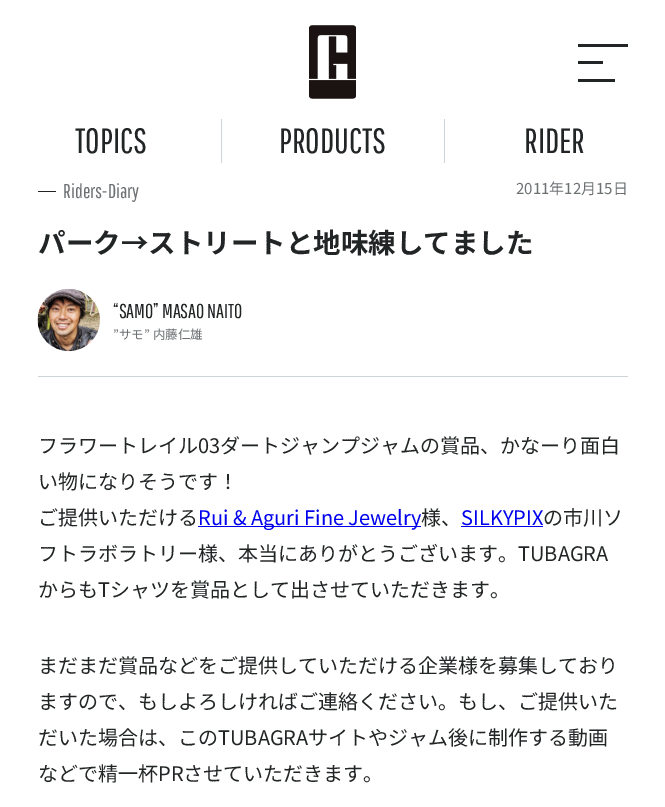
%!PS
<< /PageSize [665 807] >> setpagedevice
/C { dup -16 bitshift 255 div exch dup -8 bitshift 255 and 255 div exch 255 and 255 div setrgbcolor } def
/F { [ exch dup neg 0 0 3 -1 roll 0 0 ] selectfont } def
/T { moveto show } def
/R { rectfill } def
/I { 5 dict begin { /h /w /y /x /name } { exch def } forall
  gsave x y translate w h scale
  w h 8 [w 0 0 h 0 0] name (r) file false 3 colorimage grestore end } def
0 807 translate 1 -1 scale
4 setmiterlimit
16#FFFFFF C
0 0 665 807 R
(1.rgb) 309 25 47 74 I
16#222526 C
578 44 50 3 R
578 79 37 3 R
578 61 25 3 R
/PathwayGothicOne-Regular 35 F
(TOPICS) 75 153 T
16#CED5D9 C
221 119 1 44 R
16#222526 C
(PRODUCTS) 279 153 T
16#CED5D9 C
444 119 1 44 R
16#222526 C
(RIDER) 524 153 T
38 191 18 1 R
/PathwayGothicOne-Regular 20 F
16#6D7173 C
(Riders-Diary) 63 198 T
/NotoSansJP-Regular 15 F
(2011年12月15日) 516 194 T
/NotoSansJP-Bold 27.5 F
16#222526 C
(パーク→ストリートと地味練してました) 38 253 T
16#CED5D9 C
38 376 590 1 R
(2.rgb) 37 288 63 64 I
/PathwayGothicOne-Regular 20 F
16#222526 C
(“SAMO” MASAO NAITO) 113 318 T
/NotoSansJP-Regular 12.5 F
16#6D7173 C
(”サモ” 内藤仁雄) 113 339 T
/NotoSansJP-Regular 20 F
16#222526 C
(フラワートレイル03ダートジャンプジャムの賞品、かなーり面白) 38 453 T
(い物になりそうです！) 38 489 T
(ご提供いただける) 38 525 T
16#0000EE C
198 526 223 1 R
(Rui & Aguri Fine Jewelry) 198 525 T
16#222526 C
(様、) 421 525 T
16#0000EE C
(SILKYPIX) 461 525 T
461 526 82 1 R
16#222526 C
(の市川ソ) 543 525 T
(フトラボラトリー様、本当にありがとうございます。TUBAGRA) 38 561 T
(からもTシャツを賞品として出させていただきます。) 38 597 T
(まだまだ賞品などをご提供していただける企業様を募集しており) 38 673 T
(ますので、もしよろしければご連絡ください。もし、ご提供いた) 38 709 T
(だいた場合は、このTUBAGRAサイトやジャム後に制作する動画) 38 745 T
(などで精一杯PRさせていただきます。) 38 781 T
showpage
